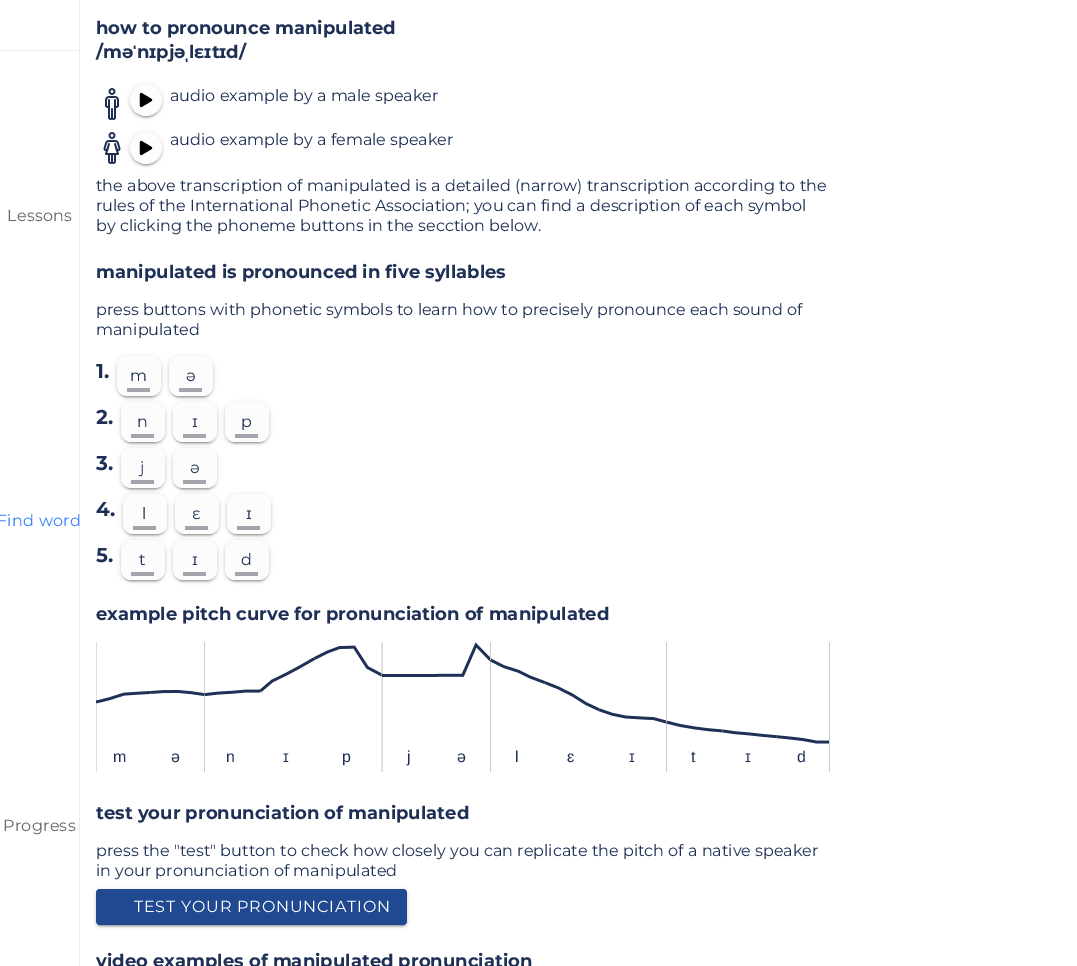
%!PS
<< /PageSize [1077 966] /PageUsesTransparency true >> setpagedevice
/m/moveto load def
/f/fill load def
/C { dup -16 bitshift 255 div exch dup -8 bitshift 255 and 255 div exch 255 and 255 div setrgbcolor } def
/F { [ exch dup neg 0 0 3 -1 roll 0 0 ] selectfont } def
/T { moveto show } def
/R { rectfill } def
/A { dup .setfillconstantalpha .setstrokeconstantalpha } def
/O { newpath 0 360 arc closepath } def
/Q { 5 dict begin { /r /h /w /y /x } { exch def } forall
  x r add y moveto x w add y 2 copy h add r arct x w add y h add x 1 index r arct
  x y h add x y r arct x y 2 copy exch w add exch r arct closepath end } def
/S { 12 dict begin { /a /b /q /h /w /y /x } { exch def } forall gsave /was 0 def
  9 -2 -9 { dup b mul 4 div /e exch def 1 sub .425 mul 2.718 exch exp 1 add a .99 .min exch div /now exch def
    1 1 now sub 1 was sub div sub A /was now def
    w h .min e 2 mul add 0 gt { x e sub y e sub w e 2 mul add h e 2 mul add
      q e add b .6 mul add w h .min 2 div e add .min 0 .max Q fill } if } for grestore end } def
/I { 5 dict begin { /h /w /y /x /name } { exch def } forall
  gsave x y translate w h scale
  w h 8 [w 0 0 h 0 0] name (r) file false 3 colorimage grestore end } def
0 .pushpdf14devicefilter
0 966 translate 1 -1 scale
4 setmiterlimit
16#FFFFFF C
0 0 1077 966 R
16#EDEDED C
79 0 1 966 R
0 50 79 1 R
/Montserrat-Regular 16 F
16#666666 C
7 221 m .25 0 (Lessons) ashow
16#3880FF C
-3 526 m .25 0 (Find word) ashow
16#666666 C
3 831 m .25 0 (Progress) ashow
/Montserrat-Bold 18 F
16#1E3056 C
(how to pronounce manipulated) 96 34 T
(/məˈnɪpjəˌlɛɪtɪd/) 96 58 T
(1.rgb) 105 88 14 32 I
16#000000 C
130 85 32 32 16 2.5 .12 S
130 86 32 32 16 1 .14 S
132 89 28 28 14 .5 .2 S
16#FCFCFC C
146 100 16 O f
(2.rgb) 139 92 14 16 I
/Montserrat-Regular 16 F
16#1E3056 C
(audio example by a male speaker) 170 101 T
(3.rgb) 103 132 18 32 I
16#000000 C
130 133 32 32 16 2.5 .12 S
130 134 32 32 16 1 .14 S
132 137 28 28 14 .5 .2 S
16#FCFCFC C
146 148 16 O f
(2.rgb) 139 140 14 16 I
16#1E3056 C
(audio example by a female speaker) 170 145 T
(the above transcription of manipulated is a detailed \(narrow\) transcription according to the) 96 191 T
(rules of the International Phonetic Association; you can find a description of each symbol) 96 211 T
(by clicking the phoneme buttons in the secction below.) 96 231 T
/Montserrat-Bold 18 F
(manipulated is pronounced in five syllables) 96 278 T
/Montserrat-Regular 16 F
(press buttons with phonetic symbols to learn how to precisely pronounce each sound of) 96 315 T
(manipulated) 96 335 T
/Montserrat-Bold 20 F
(1.) 96 378 T
16#000000 C
117 357 44 40 10 2.5 .12 S
117 358 44 40 10 1 .14 S
119 361 40 36 8 .5 .2 S
16#FCFCFC C
117 356 44 40 10 Q f
/Montserrat-Regular 16 F
16#1E3056 C
130 381 m 1 0 (m) ashow
16#A2A4AB C
127 388 23 4 R
16#000000 C
169 357 44 40 10 2.5 .12 S
169 358 44 40 10 1 .14 S
171 361 40 36 8 .5 .2 S
16#FCFCFC C
169 356 44 40 10 Q f
16#1E3056 C
186 381 m 1 0 (ə) ashow
16#A2A4AB C
179 388 23 4 R
/Montserrat-Bold 20 F
16#1E3056 C
(2.) 96 424 T
16#000000 C
121 403 44 40 10 2.5 .12 S
121 404 44 40 10 1 .14 S
123 407 40 36 8 .5 .2 S
16#FCFCFC C
121 402 44 40 10 Q f
/Montserrat-Regular 16 F
16#1E3056 C
137 427 m 1 0 (n) ashow
16#A2A4AB C
131 434 23 4 R
16#000000 C
173 403 44 40 10 2.5 .12 S
173 404 44 40 10 1 .14 S
175 407 40 36 8 .5 .2 S
16#FCFCFC C
173 402 44 40 10 Q f
16#1E3056 C
192 427 m 1 0 (ɪ) ashow
16#A2A4AB C
183 434 23 4 R
16#000000 C
225 403 44 40 10 2.5 .12 S
225 404 44 40 10 1 .14 S
227 407 40 36 8 .5 .2 S
16#FCFCFC C
225 402 44 40 10 Q f
16#1E3056 C
241 427 m 1 0 (p) ashow
16#A2A4AB C
235 434 23 4 R
/Montserrat-Bold 20 F
16#1E3056 C
(3.) 96 470 T
16#000000 C
121 449 44 40 10 2.5 .12 S
121 450 44 40 10 1 .14 S
123 453 40 36 8 .5 .2 S
16#FCFCFC C
121 448 44 40 10 Q f
/Montserrat-Regular 16 F
16#1E3056 C
140 473 m 1 0 (j) ashow
16#A2A4AB C
131 480 23 4 R
16#000000 C
173 449 44 40 10 2.5 .12 S
173 450 44 40 10 1 .14 S
175 453 40 36 8 .5 .2 S
16#FCFCFC C
173 448 44 40 10 Q f
16#1E3056 C
190 473 m 1 0 (ə) ashow
16#A2A4AB C
183 480 23 4 R
/Montserrat-Bold 20 F
16#1E3056 C
(4.) 96 516 T
16#000000 C
123 495 44 40 10 2.5 .12 S
123 496 44 40 10 1 .14 S
125 499 40 36 8 .5 .2 S
16#FCFCFC C
123 494 44 40 10 Q f
/Montserrat-Regular 16 F
16#1E3056 C
142 519 m 1 0 (l) ashow
16#A2A4AB C
133 526 23 4 R
16#000000 C
175 495 44 40 10 2.5 .12 S
175 496 44 40 10 1 .14 S
177 499 40 36 8 .5 .2 S
16#FCFCFC C
175 494 44 40 10 Q f
16#1E3056 C
192 519 m 1 0 (ɛ) ashow
16#A2A4AB C
185 526 23 4 R
16#000000 C
227 495 44 40 10 2.5 .12 S
227 496 44 40 10 1 .14 S
229 499 40 36 8 .5 .2 S
16#FCFCFC C
227 494 44 40 10 Q f
16#1E3056 C
246 519 m 1 0 (ɪ) ashow
16#A2A4AB C
237 526 23 4 R
/Montserrat-Bold 20 F
16#1E3056 C
(5.) 96 562 T
16#000000 C
121 541 44 40 10 2.5 .12 S
121 542 44 40 10 1 .14 S
123 545 40 36 8 .5 .2 S
16#FCFCFC C
121 540 44 40 10 Q f
/Montserrat-Regular 16 F
16#1E3056 C
139 565 m 1 0 (t) ashow
16#A2A4AB C
131 572 23 4 R
16#000000 C
173 541 44 40 10 2.5 .12 S
173 542 44 40 10 1 .14 S
175 545 40 36 8 .5 .2 S
16#FCFCFC C
173 540 44 40 10 Q f
16#1E3056 C
192 565 m 1 0 (ɪ) ashow
16#A2A4AB C
183 572 23 4 R
16#000000 C
225 541 44 40 10 2.5 .12 S
225 542 44 40 10 1 .14 S
227 545 40 36 8 .5 .2 S
16#FCFCFC C
225 540 44 40 10 Q f
16#1E3056 C
241 565 m 1 0 (d) ashow
16#A2A4AB C
235 572 23 4 R
/Montserrat-Bold 18 F
16#1E3056 C
(example pitch curve for pronunciation of manipulated) 96 620 T
(4.rgb) 96 642 734 130 I
/LiberationSans-Regular 16 F
113 762 m 6 0 (m) ashow
171 762 m 4 0 (ə) ashow
226 762 m 4 0 (n) ashow
283 762 m 3 0 (ɪ) ashow
342 762 m 4 0 (p) ashow
407 762 m 2 0 (j) ashow
457 762 m 4 0 (ə) ashow
515 762 m 2 0 (l) ashow
567 762 m 3 0 (ɛ) ashow
629 762 m 3 0 (ɪ) ashow
691 762 m 2 0 (t) ashow
745 762 m 3 0 (ɪ) ashow
797 762 m 4 0 (d) ashow
/Montserrat-Bold 18 F
(test your pronunciation of manipulated) 96 819 T
/Montserrat-Regular 16 F
(press the "test" button to check how closely you can replicate the pitch of a native speaker) 96 856 T
(in your pronunciation of manipulated) 96 876 T
16#000000 C
96 890 311 36 4 2.5 .12 S
96 891 311 36 4 1 .14 S
98 894 307 32 2 .5 .2 S
16#204992 C
96 889 311 36 4 Q f
16#FFFFFF C
134 912 m .8 0 (TEST YOUR PRONUNCIATION) ashow
/Montserrat-Bold 18 F
16#1E3056 C
(video examples of manipulated pronunciation) 96 967 T
.poppdf14devicefilter showpage
